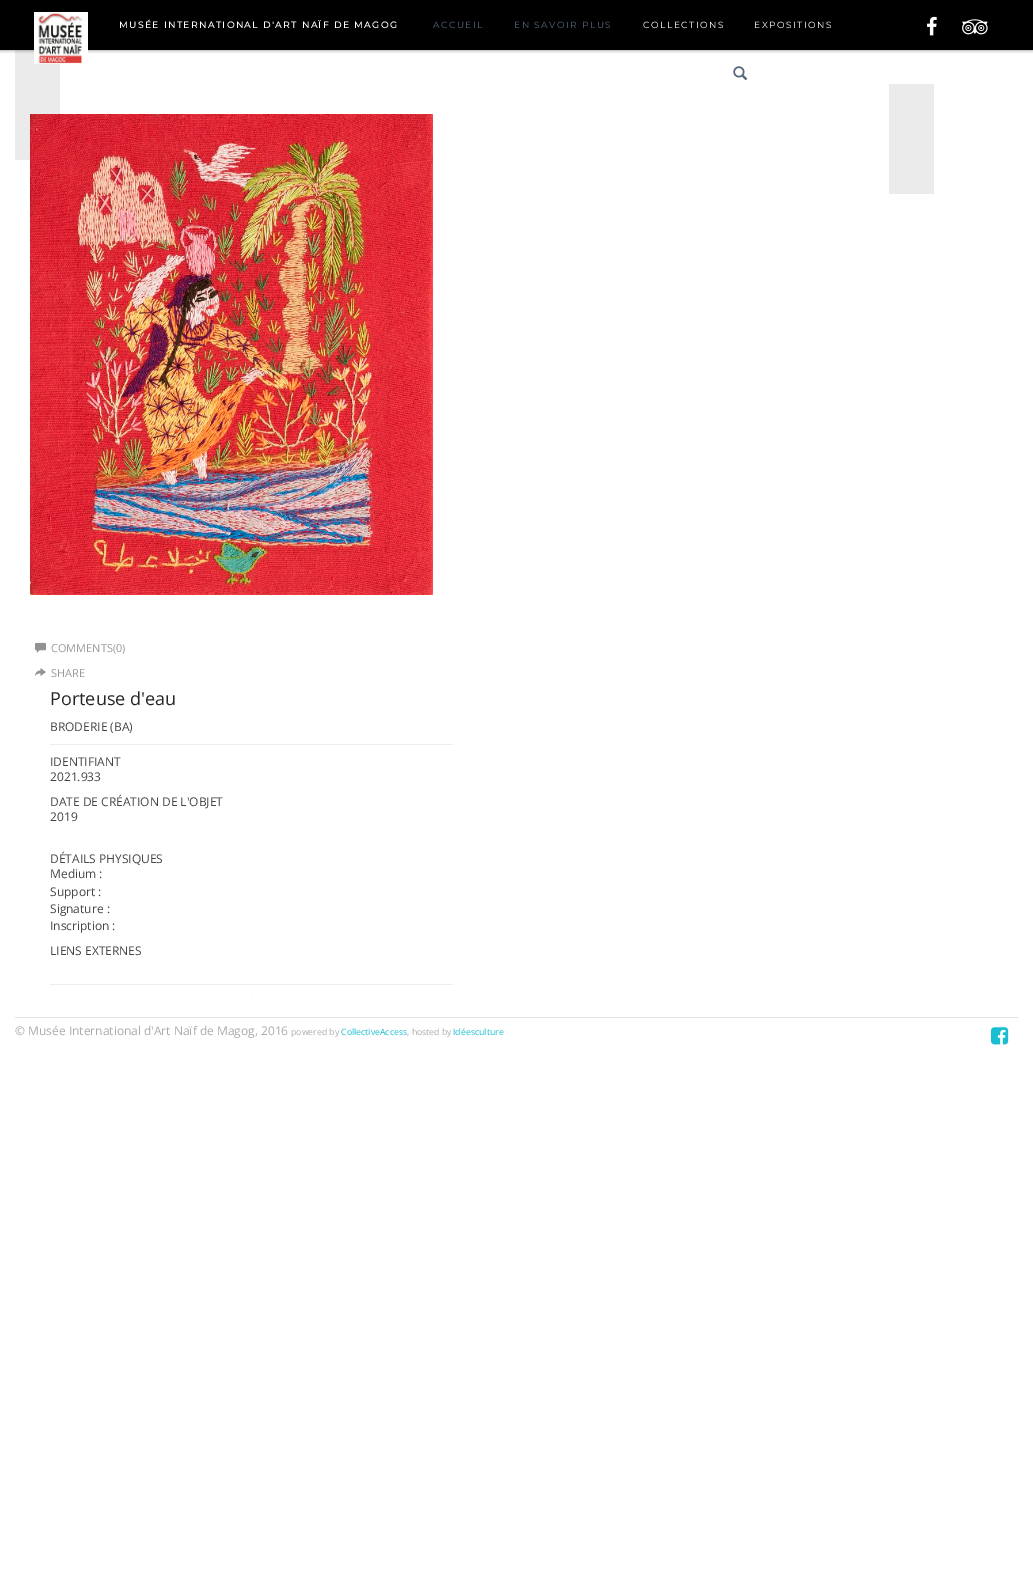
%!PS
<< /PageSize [1033 1571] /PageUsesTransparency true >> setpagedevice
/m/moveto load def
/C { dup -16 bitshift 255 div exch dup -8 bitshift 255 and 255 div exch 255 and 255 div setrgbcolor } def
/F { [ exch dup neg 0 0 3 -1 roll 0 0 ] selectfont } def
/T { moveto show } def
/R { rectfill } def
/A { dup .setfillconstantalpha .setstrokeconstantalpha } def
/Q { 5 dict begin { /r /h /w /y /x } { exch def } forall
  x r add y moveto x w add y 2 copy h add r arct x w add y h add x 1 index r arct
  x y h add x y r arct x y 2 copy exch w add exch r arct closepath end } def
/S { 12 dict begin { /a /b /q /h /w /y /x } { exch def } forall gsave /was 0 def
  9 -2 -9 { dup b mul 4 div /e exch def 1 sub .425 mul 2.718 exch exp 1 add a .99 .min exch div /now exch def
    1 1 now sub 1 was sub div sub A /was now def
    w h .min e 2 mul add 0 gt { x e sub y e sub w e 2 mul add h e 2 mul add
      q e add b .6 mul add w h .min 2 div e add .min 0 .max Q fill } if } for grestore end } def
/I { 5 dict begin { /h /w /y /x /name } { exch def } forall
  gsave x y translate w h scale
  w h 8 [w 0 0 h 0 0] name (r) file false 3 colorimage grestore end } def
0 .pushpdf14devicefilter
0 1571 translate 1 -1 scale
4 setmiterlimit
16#FFFFFF C
0 0 1033 1571 R
16#EBEBEB C
15 50 45 110 R
16#000000 C
0 1 1033 50 0 1.5 .3 S
0 0 1033 50 R
(1.rgb) 34 12 54 52 I
/Montserrat-Bold 9 F
16#FFFFFF C
119 28 m 1.5 0 (MUSÉE INTERNATIONAL D'ART NAÏF DE MAGOG) ashow
/Montserrat-Thin 9 F
16#58687A C
433 28 m 1.5 0 (ACCUEIL) ashow
514 28 m 1.5 0 (EN SAVOIR PLUS) ashow
16#FFFFFF C
643 28 m 1.5 0 (COLLECTIONS) ashow
754 28 m 1.5 0 (EXPOSITIONS) ashow
(2.rgb) 927 16 10 20 I
(3.rgb) 962 19 26 16 I
(4.rgb) 733 66 15 15 I
16#EBEBEB C
889 84 45 110 R
(5.rgb) 30 114 403 481 I
(6.rgb) 35 642 11 11 I
/OpenSans-Regular 11 F
16#999999 C
(COMMENTS\(0\)) 51 652 T
(7.rgb) 35 668 11 8 I
(SHARE) 51 677 T
/OpenSans-Regular 18 F
16#262626 C
(Porteuse d'eau) 50 705 T
/OpenSans-Regular 12 F
16#454545 C
(BRODERIE \(BA\)) 50 731 T
16#EEEEEE C
50 744 403 1 R
16#454545 C
(IDENTIFIANT) 50 766 T
(2021.933) 50 781 T
(DATE DE CRÉATION DE L'OBJET) 50 806 T
(2019) 50 821 T
(DÉTAILS PHYSIQUES) 50 863 T
(Medium :) 50 878 T
(Support :) 50 896 T
(Signature :) 50 913 T
(Inscription :) 50 930 T
(LIENS EXTERNES) 50 955 T
16#EEEEEE C
50 984 403 1 R
16#EDEDED C
251 995 1 1 R
16#E3E3E3 C
15 1017 1003 1 R
16#ABABAB C
(© Musée International d'Art Naïf de Magog, 2016) 15 1035 T
/OpenSans-Regular 8.75 F
(powered by) 291 1035 T
16#19BED1 C
(CollectiveAccess) 341 1035 T
16#ABABAB C
(, hosted by) 407 1035 T
16#19BED1 C
(Idéesculture) 453 1035 T
(8.rgb) 991 1027 18 18 I
.poppdf14devicefilter showpage
